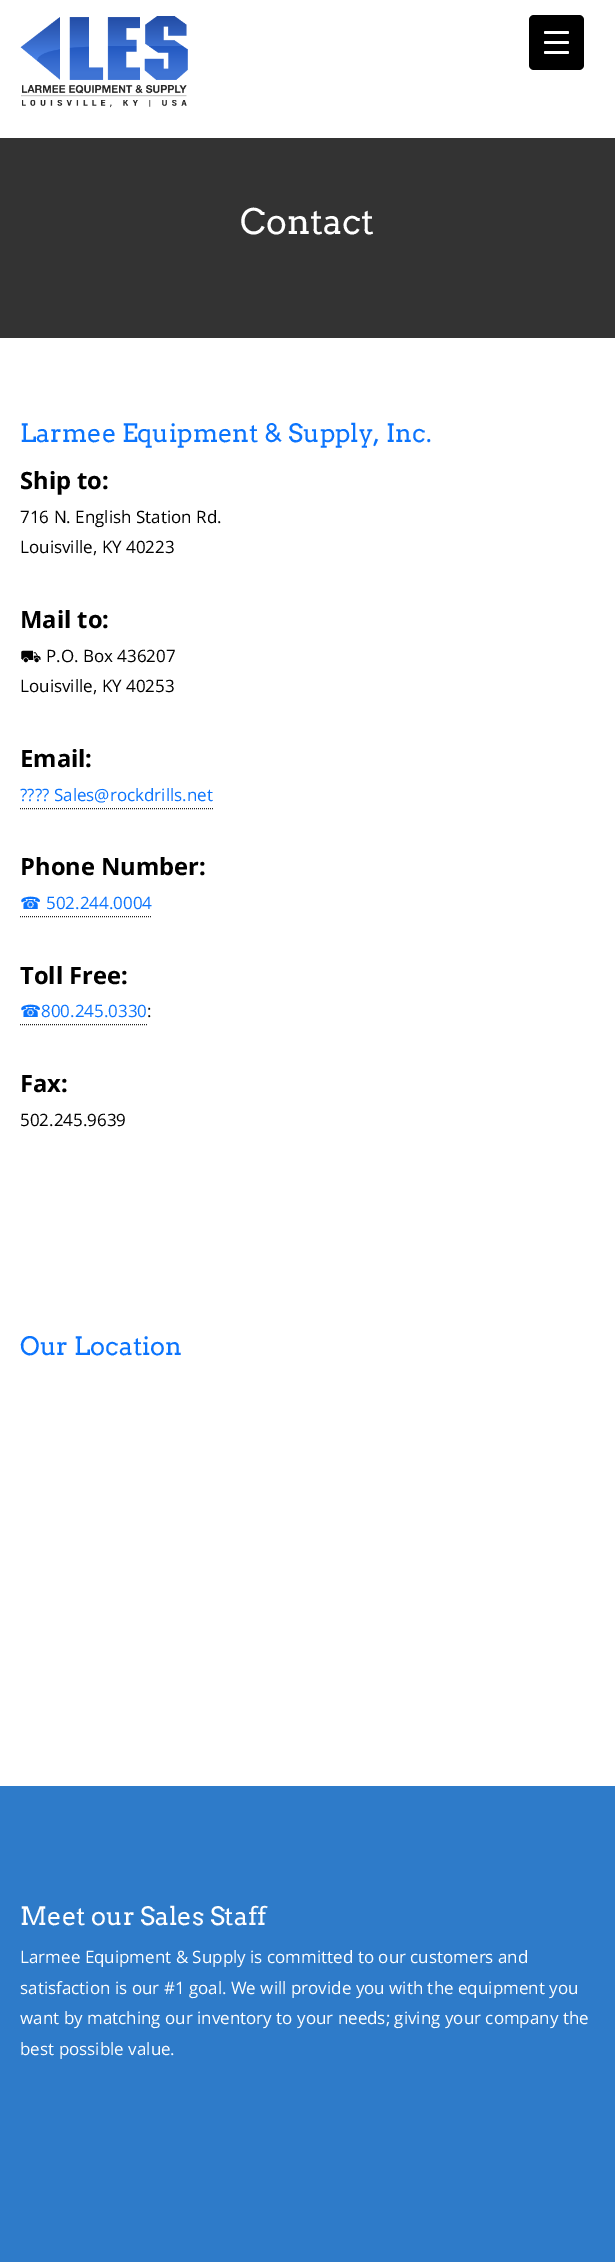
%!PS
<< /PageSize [615 2262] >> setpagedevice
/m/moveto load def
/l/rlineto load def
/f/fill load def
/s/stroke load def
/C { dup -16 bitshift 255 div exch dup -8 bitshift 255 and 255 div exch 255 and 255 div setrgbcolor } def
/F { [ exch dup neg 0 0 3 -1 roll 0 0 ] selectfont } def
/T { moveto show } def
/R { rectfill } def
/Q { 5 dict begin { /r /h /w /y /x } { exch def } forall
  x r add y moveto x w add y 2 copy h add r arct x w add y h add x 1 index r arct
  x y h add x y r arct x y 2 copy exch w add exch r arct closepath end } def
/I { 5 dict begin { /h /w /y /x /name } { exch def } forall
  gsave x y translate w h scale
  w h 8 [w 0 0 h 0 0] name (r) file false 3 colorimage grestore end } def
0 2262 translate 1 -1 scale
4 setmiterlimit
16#FFFFFF C
0 0 615 2262 R
16#000000 C
529 15 55 55 5 Q f
16#FFFFFF C
544 41 25 3 1.5 Q f
544 31 25 3 1.5 Q f
544 51 25 3 1.5 Q f
(1.rgb) 20 16 168 92 I
16#333333 C
0 138 615 200 R
/Arvo-Regular 35 F
16#FFFFFF C
(Contact) 240 234 T
/Arvo-Regular 25.3 F
16#0B74FD C
(Larmee Equipment & Supply, Inc.) 20 442 T
/OpenSans-Bold 23.75 F
16#000000 C
(Ship to:) 20 489 T
/OpenSans-Regular 17 F
(716 N. English Station Rd.) 20 523 T
(Louisville, KY 40223) 20 553 T
/OpenSans-Bold 23.75 F
(Mail to:) 20 628 T
/STIXTwoMath-Regular 17 F
(⛟) 20 662 T
/OpenSans-Regular 17 F
(P.O. Box 436207) 46 662 T
(Louisville, KY 40253) 20 692 T
/OpenSans-Bold 23.75 F
(Email:) 20 767 T
/OpenSans-Regular 17 F
16#0B74FD C
(???? Sales@rockdrills.net) 20 801 T
16#222222 C
[1 1] 0 setdash
20 808.5 m 193 0 l s
/OpenSans-Bold 23.75 F
16#000000 C
(Phone Number:) 20 875 T
/DejaVuSans-Regular 17 F
16#0B74FD C
(☎) 20 909 T
/OpenSans-Regular 17 F
(502.244.0004) 46 909 T
16#222222 C
20 916.5 m 132 0 l s
/OpenSans-Bold 23.75 F
16#000000 C
(Toll Free:) 20 984 T
/DejaVuSans-Regular 17 F
16#0B74FD C
(☎) 20 1017 T
/OpenSans-Regular 17 F
(800.245.0330) 41 1017 T
16#222222 C
20 1024.5 m 127 0 l s
16#000000 C
(:) 147 1017 T
/OpenSans-Bold 23.75 F
(Fax:) 20 1092 T
/OpenSans-Regular 17 F
(502.245.9639) 20 1126 T
/Arvo-Regular 25.3 F
16#0B74FD C
(Our Location) 20 1355 T
16#2E7BC9 C
0 1786 615 476 R
16#FFFFFF C
(Meet our Sales Staff) 20 1925 T
/OpenSans-Regular 17 F
(Larmee Equipment & Supply is committed to our customers and) 20 1963 T
(satisfaction is our #1 goal. We will provide you with the equipment you) 20 1994 T
(want by matching our inventory to your needs; giving your company the) 20 2024 T
(best possible value.) 20 2055 T
showpage
